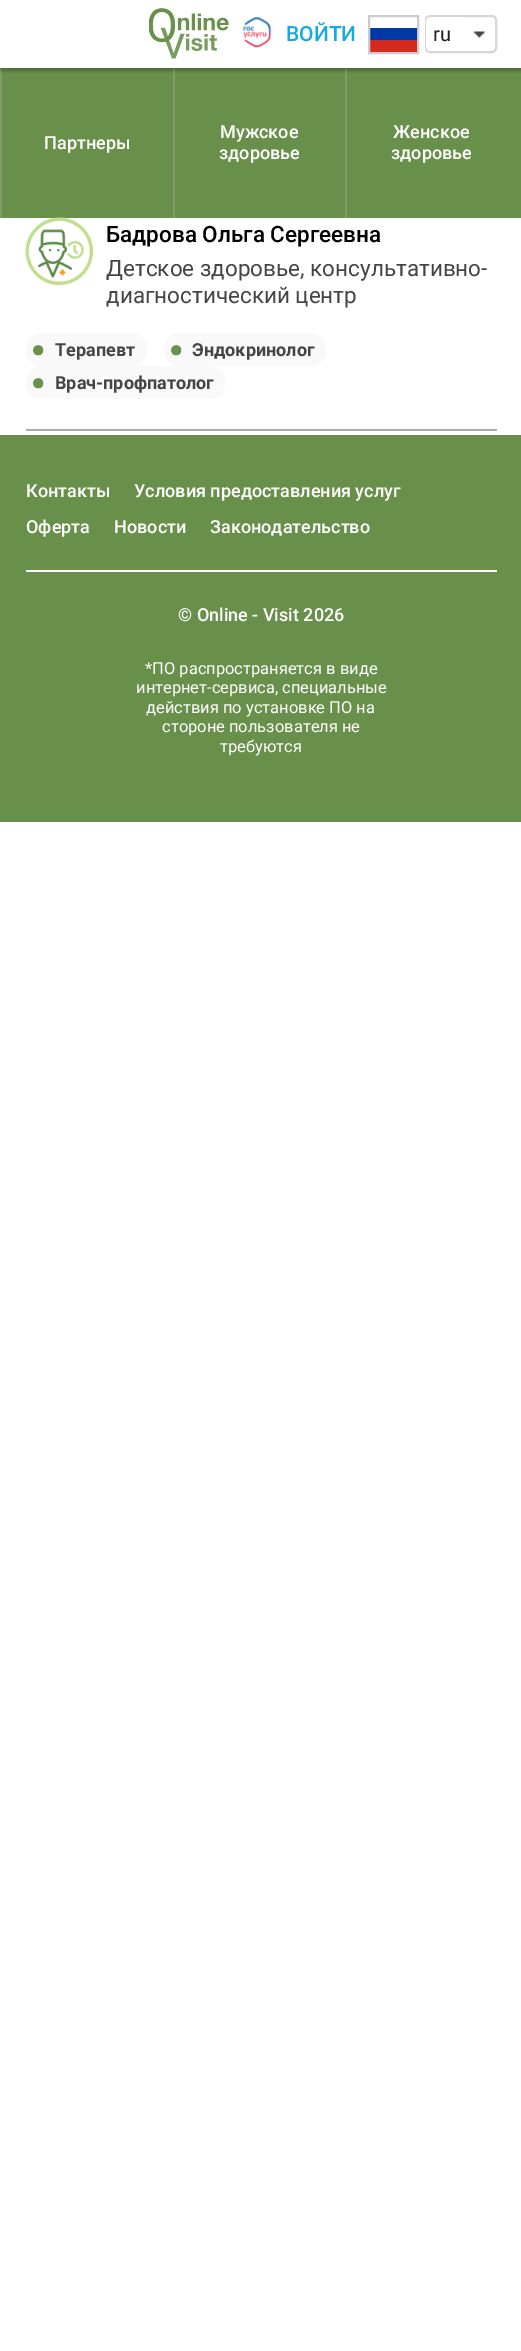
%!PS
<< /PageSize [521 2351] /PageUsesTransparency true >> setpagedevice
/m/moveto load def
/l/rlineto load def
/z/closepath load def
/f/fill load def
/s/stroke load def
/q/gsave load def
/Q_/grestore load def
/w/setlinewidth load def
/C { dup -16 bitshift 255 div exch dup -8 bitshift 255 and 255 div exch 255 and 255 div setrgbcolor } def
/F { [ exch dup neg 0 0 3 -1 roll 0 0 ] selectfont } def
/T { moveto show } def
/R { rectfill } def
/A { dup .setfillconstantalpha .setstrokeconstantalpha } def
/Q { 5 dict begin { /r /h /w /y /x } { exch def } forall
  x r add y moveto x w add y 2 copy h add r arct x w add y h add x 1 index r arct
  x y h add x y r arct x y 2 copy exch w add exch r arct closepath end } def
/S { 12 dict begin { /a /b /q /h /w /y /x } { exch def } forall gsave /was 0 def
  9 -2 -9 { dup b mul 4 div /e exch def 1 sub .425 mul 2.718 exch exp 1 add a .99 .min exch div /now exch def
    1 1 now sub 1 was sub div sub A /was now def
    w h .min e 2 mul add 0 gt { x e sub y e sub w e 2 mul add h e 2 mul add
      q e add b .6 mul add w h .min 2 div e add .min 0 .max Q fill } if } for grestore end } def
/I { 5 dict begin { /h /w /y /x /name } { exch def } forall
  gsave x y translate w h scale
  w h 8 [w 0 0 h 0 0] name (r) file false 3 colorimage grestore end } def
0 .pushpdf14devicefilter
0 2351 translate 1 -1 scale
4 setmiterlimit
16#FFFFFF C
0 0 521 2351 R
(1.rgb) 149 8 80 51 I
(2.rgb) 243 17 29 31 I
/Roboto-Medium 21 F
16#14ACDD C
(ВОЙТИ) 286 41 T
16#0039A6 C
370 28 47 12 R
16#D52B1E C
370 40 47 12 R
16#CCCCCC C
2 w
369 16 49 37 rectstroke
16#D6D6D6 C
426 16 70 36 4 Q s
16#FFFFFF C
426 17 42 34 5 Q f
/Roboto-Regular 20 F
16#222222 C
(ru) 433 41 T
(3.rgb) 473 31 12 7 I
16#69904B C
2 68 519 150 R
16#7F9D68 C
0 68 2 150 R
173 68 2 150 R
345 68 2 150 R
q
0 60 m 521 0 l 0 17 l -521 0 l z 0 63 m 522 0 l 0 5 l -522 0 l z eoclip newpath
16#000000 C
0 66 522 5 0 1.5 .25 S
Q_
/Roboto-Medium 18 F
16#FFFFFF C
(Партнеры) 44 149 T
(Мужское) 220 138 T
(здоровье) 219 159 T
(Женское) 393 138 T
(здоровье) 391 159 T
(4.rgb) 25 217 68 68 I
/Roboto-Medium 22.5 F
16#000000 C
(Бадрова Ольга Сергеевна) 106 242 T
/Roboto-Regular 22.5 F
16#454545 C
(Детское здоровье, консультативно-) 106 276 T
(диагностический центр) 106 303 T
16#F9F9F9 C
26 333 121 33 15 Q f
(5.rgb) 32 345 12 11 I
/Roboto-Bold 18 F
16#454545 C
(Терапевт) 55 356 T
16#F9F9F9 C
164 333 162 33 15 Q f
(5.rgb) 170 345 12 11 I
16#454545 C
(Эндокринолог) 192 356 T
16#F9F9F9 C
26 366 199 33 15 Q f
(5.rgb) 32 378 12 11 I
16#454545 C
(Врач-профпатолог) 55 389 T
16#ABABAB C
26 429 471 2 R
16#69904B C
0 435 521 387 R
16#FFFFFF C
26 570 471 2 R
/Roboto-Medium 18 F
(Контакты) 26 497 T
(Условия предоставления услуг) 134 497 T
(Оферта) 26 533 T
(Новости) 114 533 T
(Законодательство) 210 533 T
(© Online - Visit 2026) 178 621 T
/Roboto-Regular 16.5 F
(*ПО распространяется в виде) 145 674 T
(интернет-сервиса, специальные) 136 693 T
(действия по установке ПО на) 146 713 T
(стороне пользователя не) 162 732 T
(требуются) 220 752 T
.poppdf14devicefilter showpage
